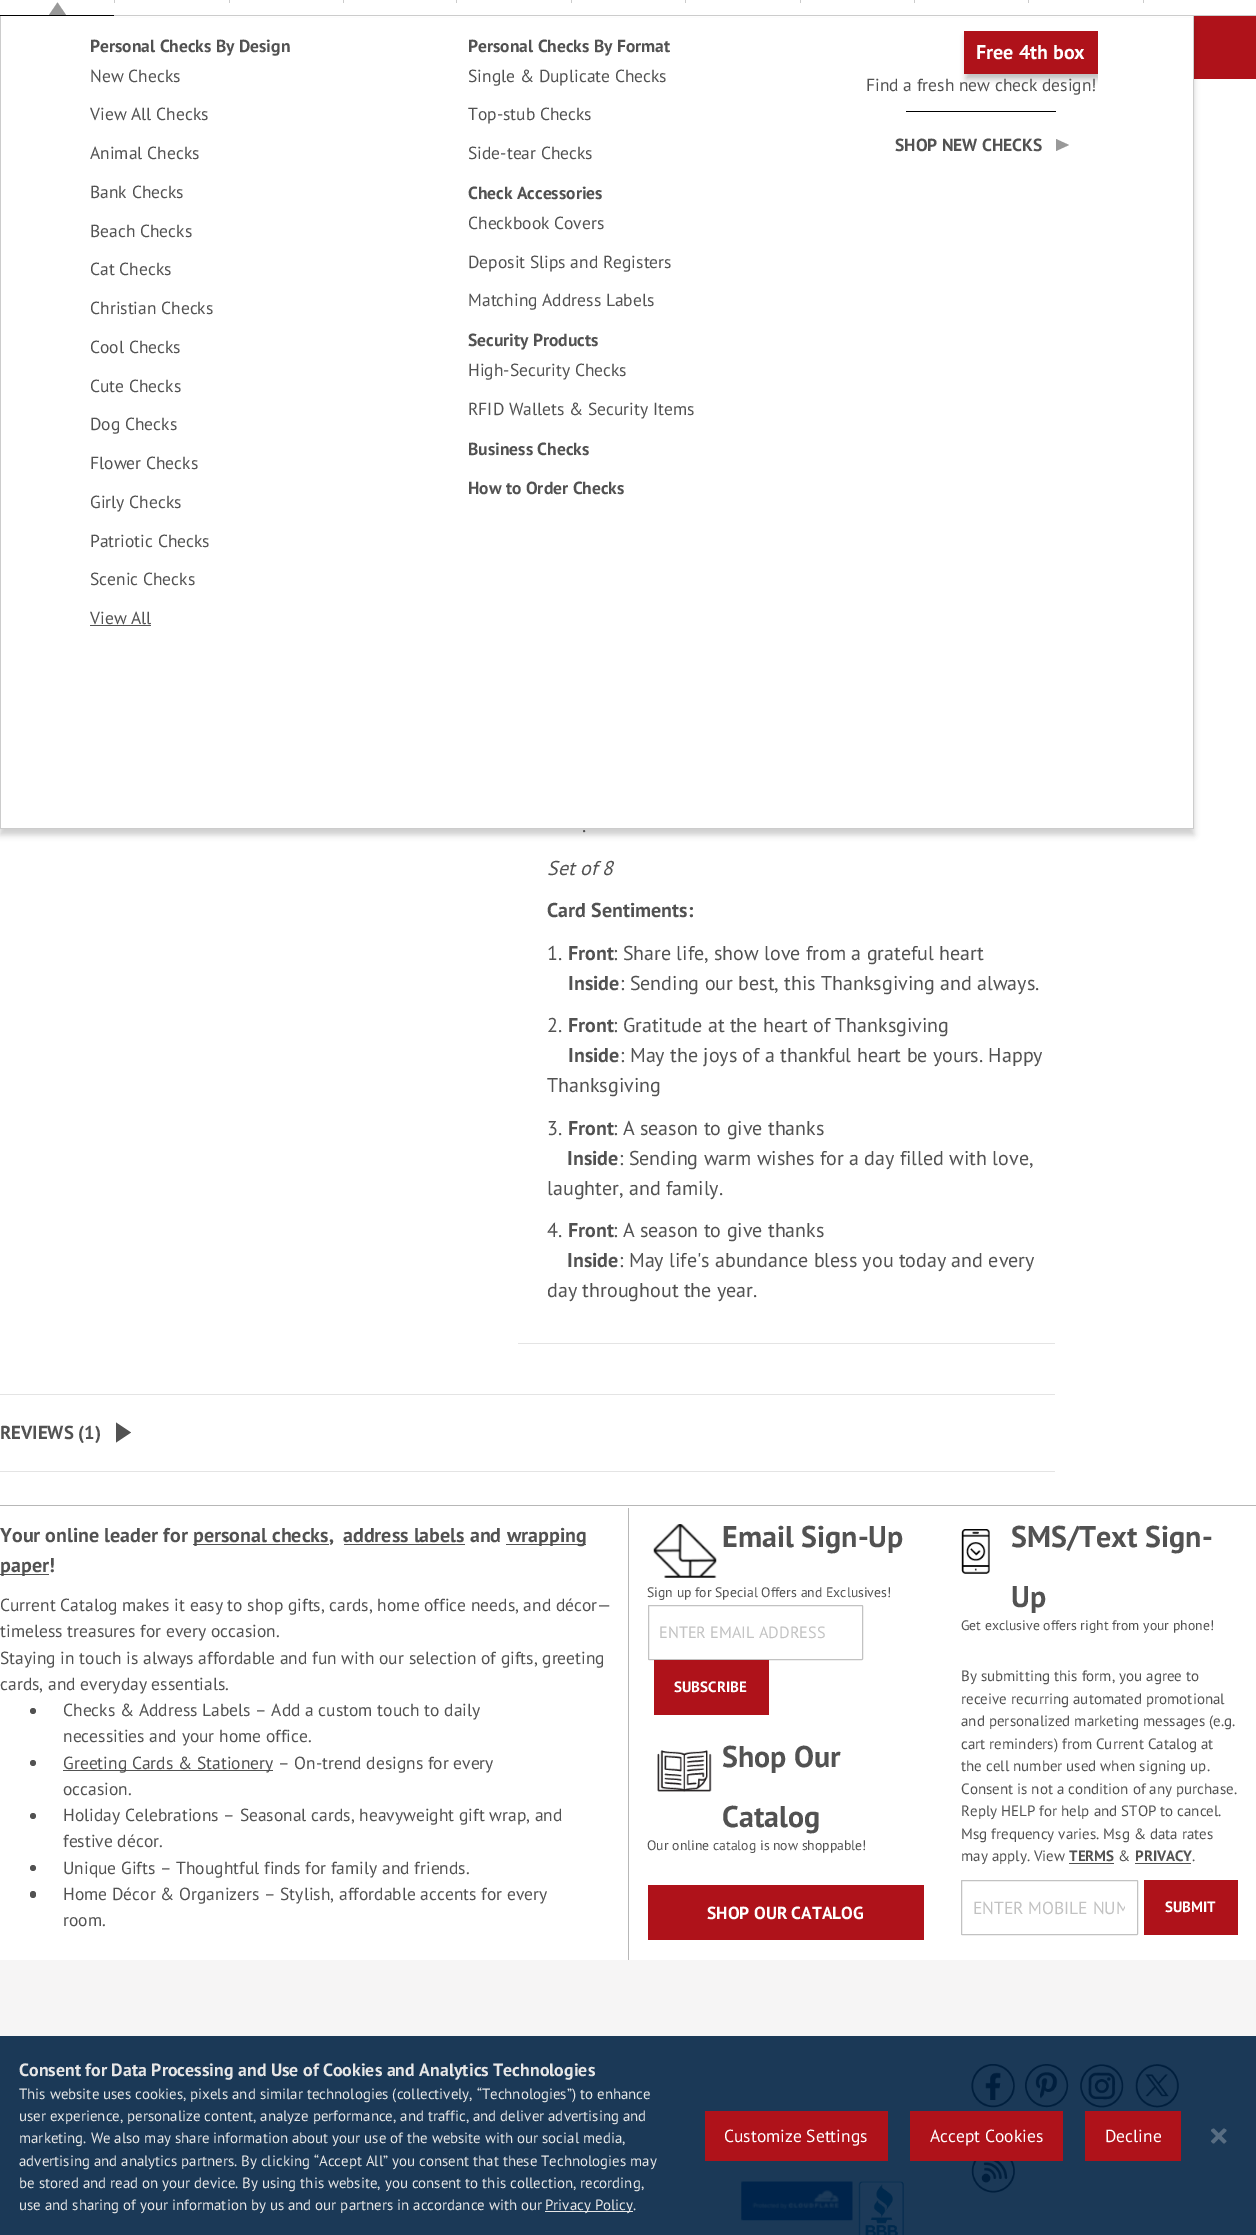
%!PS
<< /PageSize [1256 2235] /PageUsesTransparency true >> setpagedevice
/m/moveto load def
/l/rlineto load def
/c/rcurveto load def
/z/closepath load def
/f/fill load def
/s/stroke load def
/q/gsave load def
/Q_/grestore load def
/C { dup -16 bitshift 255 div exch dup -8 bitshift 255 and 255 div exch 255 and 255 div setrgbcolor } def
/F { [ exch dup neg 0 0 3 -1 roll 0 0 ] selectfont } def
/T { moveto show } def
/R { rectfill } def
/A { dup .setfillconstantalpha .setstrokeconstantalpha } def
/O { newpath 0 360 arc closepath } def
/Q { 5 dict begin { /r /h /w /y /x } { exch def } forall
  x r add y moveto x w add y 2 copy h add r arct x w add y h add x 1 index r arct
  x y h add x y r arct x y 2 copy exch w add exch r arct closepath end } def
/S { 12 dict begin { /a /b /q /h /w /y /x } { exch def } forall gsave /was 0 def
  9 -2 -9 { dup b mul 4 div /e exch def 1 sub .425 mul 2.718 exch exp 1 add a .99 .min exch div /now exch def
    1 1 now sub 1 was sub div sub A /was now def
    w h .min e 2 mul add 0 gt { x e sub y e sub w e 2 mul add h e 2 mul add
      q e add b .6 mul add w h .min 2 div e add .min 0 .max Q fill } if } for grestore end } def
/I { 5 dict begin { /h /w /y /x /name } { exch def } forall
  gsave x y translate w h scale
  w h 8 [w 0 0 h 0 0] name (r) file false 3 colorimage grestore end } def
0 .pushpdf14devicefilter
0 2235 translate 1 -1 scale
4 setmiterlimit
16#FFFFFF C
0 0 1256 2235 R
16#CCCCCC C
114 15 1142 1 R
114 0 1 3 R
229 0 1 3 R
343 0 1 3 R
456 0 1 3 R
571 0 1 3 R
685 0 1 3 R
800 0 1 3 R
914 0 1 3 R
1028 0 1 3 R
1143 0 1 3 R
16#000000 C
0 15 114 1 R
16#999999 C
66 15 m -17 0 l 8.5 -12.5 l z f
16#AF121A C
1194 16 62 63 R
16#000000 C
0 23 1194 812 0 3 .19 S
16#FFFFFF C
1 18 1192 810 R
16#CCCCCC C
1193 16 1 813 R
0 828 1194 1 R
0 16 1 813 R
/PTSans-Bold 17.5 F
16#525252 C
(Personal Checks By Design) 90 52 T
/PTSans-Regular 17.5 F
(New Checks) 90 82 T
(View All Checks) 90 120 T
(Animal Checks) 90 159 T
(Bank Checks) 90 198 T
(Beach Checks) 90 237 T
(Cat Checks) 90 275 T
(Christian Checks) 90 314 T
(Cool Checks) 90 353 T
(Cute Checks) 90 392 T
(Dog Checks) 90 430 T
(Flower Checks) 90 469 T
(Girly Checks) 90 508 T
(Patriotic Checks) 90 547 T
(Scenic Checks) 90 585 T
(View All) 90 624 T
90 625 61 1 R
/PTSans-Bold 17.5 F
(Personal Checks By Format) 468 52 T
/PTSans-Regular 17.5 F
(Single & Duplicate Checks) 468 82 T
(Top-stub Checks) 468 120 T
(Side-tear Checks) 468 159 T
q
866 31 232 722 rectclip
16#000000 C
966 36 134 43 0 3 .25 S
Q_
16#AF121A C
964 31 134 43 R
/PTSans-Bold 20 F
16#FFFFFF C
(Free 4th box) 976 59 T
/PTSans-Regular 17.5 F
16#525252 C
(Find a fresh new check design!) 866 91 T
16#000000 C
906 111 150 1 R
/PTSans-Bold 17.5 F
16#525252 C
(SHOP NEW CHECKS) 895 151 T
16#999999 C
1056 151 m 0 -12 l 13 6 l z f
16#525252 C
(Check Accessories) 468 199 T
/PTSans-Regular 17.5 F
(Checkbook Covers) 468 229 T
(Deposit Slips and Registers) 468 268 T
(Matching Address Labels) 468 306 T
/PTSans-Bold 17.5 F
(Security Products) 468 346 T
/PTSans-Regular 17.5 F
(High-Security Checks) 468 376 T
(RFID Wallets & Security Items) 468 415 T
/PTSans-Bold 17.5 F
(Business Checks) 468 455 T
(How to Order Checks) 468 494 T
16#E4E4E4 C
518 1343 537 1 R
/PTSans-Regular 20 F
16#525252 C
(.) 582 832 T
/PTSans-Italic 20 F
(Set of 8) 547 875 T
/PTSans-Bold 20 F
(Card Sentiments:) 547 917 T
/PTSans-Regular 20 F
(1.) 547 960 T
/PTSans-Bold 20 F
(Front) 568 960 T
/PTSans-Regular 20 F
(: Share life, show love from a grateful heart) 613 960 T
/PTSans-Bold 20 F
(Inside) 568 990 T
/PTSans-Regular 20 F
(: Sending our best, this Thanksgiving and always.) 620 990 T
(2.) 547 1032 T
/PTSans-Bold 20 F
(Front) 568 1032 T
/PTSans-Regular 20 F
(: Gratitude at the heart of Thanksgiving) 613 1032 T
/PTSans-Bold 20 F
(Inside) 568 1062 T
/PTSans-Regular 20 F
(: May the joys of a thankful heart be yours. Happy) 620 1062 T
(Thanksgiving) 547 1092 T
(3.) 547 1135 T
/PTSans-Bold 20 F
(Front) 568 1135 T
/PTSans-Regular 20 F
(: A season to give thanks) 613 1135 T
/PTSans-Bold 20 F
(Inside) 567 1165 T
/PTSans-Regular 20 F
(: Sending warm wishes for a day filled with love,) 619 1165 T
(laughter, and family.) 547 1195 T
(4.) 547 1237 T
/PTSans-Bold 20 F
(Front) 568 1237 T
/PTSans-Regular 20 F
(: A season to give thanks) 613 1237 T
/PTSans-Bold 20 F
(Inside) 567 1267 T
/PTSans-Regular 20 F
(: May life's abundance bless you today and every) 619 1267 T
(day throughout the year.) 547 1297 T
16#E4E4E4 C
0 1394 1055 1 R
0 1471 1055 1 R
/PTSans-Bold 18.75 F
16#525252 C
(REVIEWS \(1\)) 0 1439 T
116 1442.5 m 0 -20 l 15 10 l z f
16#B7B7B7 C
0 1505 1256 1 R
628 1508 1 452 R
/PTSans-Bold 20 F
16#525252 C
(Your online leader for) 0 1542 T
193 1544 136 1 R
(personal checks,) 193 1542 T
(address labels and) 343 1542 T
344 1544 121 1 R
506 1544 80 1 R
(wrapping) 507 1542 T
0 1574 49 1 R
(paper!) 0 1572 T
/PTSans-Regular 17.5 F
(Current Catalog makes it easy to shop gifts, cards, home office needs, and décor—) 0 1611 T
(timeless treasures for every occasion.) 0 1637 T
(Staying in touch is always affordable and fun with our selection of gifts, greeting) 0 1664 T
(cards, and everyday essentials.) 0 1690 T
33 1711 3 O f
(Checks & Address Labels – Add a custom touch to daily) 63 1716 T
(necessities and your home office.) 63 1742 T
33 1763 3 O f
63 1770 210 1 R
(Greeting Cards & Stationery – On-trend designs for every) 63 1769 T
(occasion.) 63 1795 T
33 1816 3 O f
(Holiday Celebrations – Seasonal cards, heavyweight gift wrap, and) 63 1821 T
(festive décor.) 63 1847 T
33 1868 3 O f
(Unique Gifts – Thoughtful finds for family and friends.) 63 1874 T
30 1891 6 7 3 Q f
(Home Décor & Organizers – Stylish, affordable accents for every) 63 1900 T
(room.) 63 1926 T
(1.rgb) 653 1524 64 54 I
/PTSans-Bold 30 F
(Email Sign-Up) 722 1547 T
/PTSans-Regular 13.75 F
(Sign up for Special Offers and Exclusives!) 647 1597 T
16#C2C2C2 C
648.5 1605.5 214 54 .5 Q s
/PTSans-Regular 16.25 F
(ENTER EMAIL ADDRESS) 659 1638 T
16#AF121A C
654 1660 115 55 R
/PTSans-Bold 15 F
16#FFFFFF C
(SUBSCRIBE) 674 1692 T
(2.rgb) 657 1750 55 42 I
/PTSans-Bold 30 F
16#525252 C
(Shop Our) 722 1767 T
(Catalog) 722 1827 T
/PTSans-Regular 13.75 F
(Our online catalog is now shoppable!) 647 1850 T
16#AF121A C
648 1885 276 55 R
/PTSans-Bold 17.5 F
16#FFFFFF C
(SHOP OUR CATALOG) 707 1919 T
(3.rgb) 961 1529 29 45 I
/PTSans-Bold 30 F
16#525252 C
(SMS/Text Sign-) 1011 1547 T
(Up) 1011 1607 T
/PTSans-Regular 13.75 F
(Get exclusive offers right from your phone!) 961 1630 T
/PTSans-Regular 15 F
(By submitting this form, you agree to) 961 1681 T
(receive recurring automated promotional) 961 1704 T
(and personalized marketing messages \(e.g.) 961 1726 T
(cart reminders\) from Current Catalog at) 961 1749 T
(the cell number used when signing up.) 961 1771 T
(Consent is not a condition of any purchase.) 961 1794 T
(Reply HELP for help and STOP to cancel.) 961 1816 T
(Msg frequency varies. Msg & data rates) 961 1839 T
(may apply. View) 961 1861 T
/PTSans-Bold 15 F
(TERMS) 1069 1861 T
1069 1863 45 1 R
/PTSans-Regular 15 F
(&) 1118 1861 T
/PTSans-Bold 15 F
(PRIVACY) 1135 1861 T
1135 1863 56 1 R
/PTSans-Regular 15 F
(.) 1192 1861 T
16#C2C2C2 C
961.5 1880.5 176 54 .5 Q s
q
974 1896 151 23 rectclip
/PTSans-Regular 17.5 F
(ENTER MOBILE NUM) 973 1914 T
Q_
16#AF121A C
1144 1880 94 55 R
/PTSans-Bold 15 F
16#FFFFFF C
(SUBMIT) 1165 1912 T
16#F6F5F5 C
0 1960 1256 275 R
(4.rgb) 971 2064 44 44 I
(5.rgb) 1025 2064 44 44 I
(6.rgb) 1080 2064 44 44 I
(7.rgb) 1135 2064 44 44 I
(8.rgb) 971 2161 44 32 I
(9.rgb) 741 2181 112 40 I
(10.rgb) 858 2181 46 54 I
0.89 A
16#002244 C
0 2036 1256 199 R
/PTSans-Bold 17.85 F
1 A
16#E6E6E6 C
(Consent for Data Processing and Use of Cookies and Analytics Technologies) 19 2076 T
/PTSans-Regular 14.9 F
(This website uses cookies, pixels and similar technologies \(collectively, “Technologies”\) to enhance) 19 2099 T
(user experience, personalize content, analyze performance, and traffic, and deliver advertising and) 19 2121 T
(marketing. We also may share information about your use of the website with our social media,) 19 2143 T
(advertising and analytics partners. By clicking “Accept All” you consent that these Technologies may) 19 2166 T
(be stored and read on your device. By using this website, you consent to this collection, recording,) 19 2188 T
(use and sharing of your information by us and our partners in accordance with our) 19 2210 T
545 2211 88 1 R
(Privacy Policy.) 545 2210 T
16#AF121A C
705 2111 183 50 R
/PTSans-Regular 17.5 F
16#FFFFFF C
(Customize Settings) 724 2142 T
16#AF121A C
910 2111 153 50 R
16#FFFFFF C
(Accept Cookies) 930 2142 T
16#AF121A C
1085 2111 96 50 R
16#FFFFFF C
(Decline) 1105 2142 T
16#586D82 C
1214.5 2129 m 11.5 11.5 l .5 .5 .5 1 0 1.5 c -1 1 l -.5 .5 -1.5 .5 -2 0 c -11.5 -11.5 l -.5 -.5 -.5 -1.5 0 -2 c 1 -.5 l .5 -.5 1.5 -.5 2 0 c z f
1211.5 2140.5 m 11.5 -11.5 l .5 -.5 1.5 -.5 2 0 c 1 .5 l .5 .5 .5 1.5 0 2 c -11.5 11.5 l -.5 .5 -1.5 .5 -2 0 c -1 -1 l -.5 -.5 -.5 -1 0 -1.5 c z f
.poppdf14devicefilter showpage
